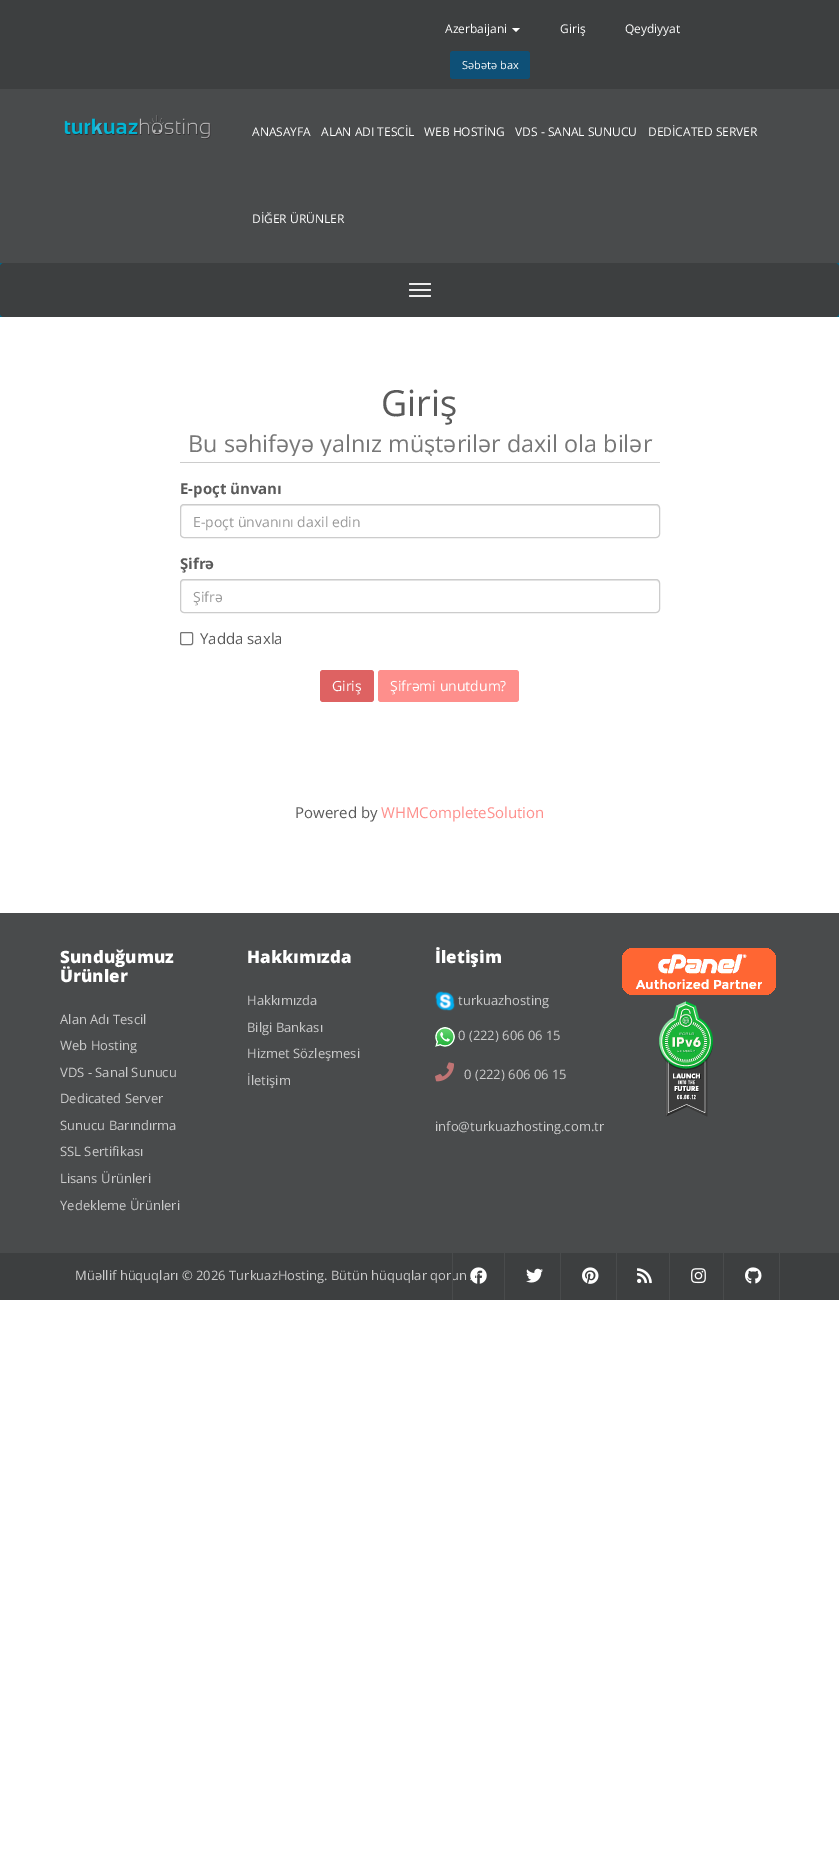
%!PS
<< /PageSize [839 1849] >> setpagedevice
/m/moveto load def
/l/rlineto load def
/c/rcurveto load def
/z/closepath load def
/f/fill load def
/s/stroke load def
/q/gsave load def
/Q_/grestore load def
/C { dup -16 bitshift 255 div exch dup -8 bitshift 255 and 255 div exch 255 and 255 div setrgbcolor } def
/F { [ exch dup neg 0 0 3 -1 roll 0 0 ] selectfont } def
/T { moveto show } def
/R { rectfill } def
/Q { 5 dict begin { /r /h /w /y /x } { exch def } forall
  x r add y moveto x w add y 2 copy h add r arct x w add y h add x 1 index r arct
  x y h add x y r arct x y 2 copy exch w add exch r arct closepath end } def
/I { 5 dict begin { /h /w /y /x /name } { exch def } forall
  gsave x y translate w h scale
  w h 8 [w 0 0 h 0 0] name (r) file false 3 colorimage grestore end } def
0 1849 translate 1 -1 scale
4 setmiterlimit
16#FFFFFF C
0 0 839 1849 R
16#3D3F40 C
0 0 839 89 R
/OpenSans-Regular 12 F
16#FFFFFF C
(Azerbaijani) 445 33 T
512 28 m 8 0 l -4 4 l z f
(Giriş) 560 33 T
(Qeydiyyat) 625 33 T
16#0E5077 C
450 51 80 28 3 Q f
/OpenSans-Regular 11 F
16#FFFFFF C
(Səbətə bax) 462 69 T
16#494B4C C
0 89 839 174 R
(1.rgb) 64 115 147 24 I
/OpenSans-Regular 12 F
16#FFFFFF C
(ANASAYFA) 252 136 T
(ALAN ADI TESCİL) 321 136 T
(WEB HOSTİNG) 424 136 T
(VDS - SANAL SUNUCU) 515 136 T
(DEDİCATED SERVER) 648 136 T
(DİĞER ÜRÜNLER) 252 223 T
16#006687 C
0 263 839 54 R
16#3D3F40 C
0 263 839 54 4 Q f
16#EEEEEE C
409 283 22 2 1 Q f
409 289 22 2 1 Q f
409 295 22 2 1 Q f
16#CCCCCC C
180 462 480 1 R
/OpenSans-Regular 36 F
16#5A5A5A C
(Giriş) 381 416 T
q
180 422 480 34 rectclip
/OpenSans-Regular 23.4 F
16#777777 C
(Bu səhifəyə yalnız müştərilər daxil ola bilər) 188 452 T
Q_
/OpenSans-Bold 15 F
(E-poçt ünvanı) 180 494 T
16#ECECEC C
184 506 m 472 0 l 2 0 3 1 3 3 c 0 -2 0 -4 -2 -4 c -474 0 l -2 2 l 0 2 l 0 -2 1 -3 3 -3 c z f
16#CCCCCC C
180.5 504.5 479 33 3.5 Q s
/OpenSans-Regular 14 F
16#999999 C
(E-poçt ünvanını daxil edin) 193 527 T
/OpenSans-Bold 15 F
16#5A5A5A C
(Şifrə) 180 569 T
16#ECECEC C
184 581 m 472 0 l 2 0 3 1 3 3 c 0 -2 0 -4 -2 -4 c -474 0 l -2 2 l 0 2 l 0 -2 1 -3 3 -3 c z f
16#CCCCCC C
180.5 579.5 479 33 3.5 Q s
/OpenSans-Regular 14 F
16#999999 C
(Şifrə) 193 602 T
16#767676 C
180.5 632.5 12 12 1.5 Q s
/OpenSans-Regular 15 F
16#5A5A5A C
(Yadda saxla) 200 644 T
16#DE6262 C
320 670 54 32 3 Q f
/OpenSans-Regular 14 F
16#FFFFFF C
(Giriş) 332 691 T
16#FE8F8C C
378 670 141 32 3 Q f
16#FFFFFF C
(Şifrəmi unutdum?) 390 691 T
/OpenSans-Regular 15 F
16#5A5A5A C
(Powered by) 295 818 T
16#FE8F8C C
(WHMCompleteSolution) 381 818 T
16#494B4C C
0 913 839 340 R
/OpenSans-ExtraBold 17 F
16#FFFFFF C
(Sunduğumuz) 60 963 T
(Ürünler) 60 982 T
/OpenSans-Regular 13 F
16#CCCCCC C
(Alan Adı Tescil) 60 1024 T
(Web Hosting) 60 1050 T
(VDS - Sanal Sunucu) 60 1077 T
(Dedicated Server) 60 1103 T
(Sunucu Barındırma) 60 1130 T
(SSL Sertifikası) 60 1156 T
(Lisans Ürünleri) 60 1183 T
(Yedekleme Ürünleri) 60 1210 T
/OpenSans-ExtraBold 17 F
16#FFFFFF C
(Hakkımızda) 247 963 T
/OpenSans-Regular 13 F
16#CCCCCC C
(Hakkımızda) 247 1005 T
(Bilgi Bankası) 247 1032 T
(Hizmet Sözleşmesi) 247 1058 T
(İletişim) 247 1085 T
/OpenSans-ExtraBold 17 F
16#FFFFFF C
(İletişim) 435 963 T
(2.rgb) 435 991 20 20 I
/OpenSans-Regular 13 F
16#CCCCCC C
(turkuazhosting) 458 1005 T
(3.rgb) 435 1027 20 20 I
(0 \(222\) 606 06 15) 458 1040 T
(4.rgb) 435 1062 19 20 I
(0 \(222\) 606 06 15) 464 1079 T
(info@turkuazhosting.com.tr) 435 1131 T
(5.rgb) 622 948 154 47 I
(6.rgb) 659 1001 54 116 I
16#3D3F40 C
0 1253 839 47 R
16#CCCCCC C
(Müəllif hüquqları © 2026 TurkuazHosting. Bütün hüquqlar qorun) 75 1280 T
16#494B4C C
504 1253 1 47 R
452 1253 1 47 R
(7.rgb) 470 1267 17 17 I
560 1253 1 47 R
(8.rgb) 526 1268 17 15 I
616 1253 1 47 R
(9.rgb) 582 1267 17 17 I
669 1253 1 47 R
(10.rgb) 637 1268 15 16 I
723 1253 1 47 R
(11.rgb) 691 1268 15 16 I
779 1253 1 47 R
(12.rgb) 745 1267 17 17 I
showpage
